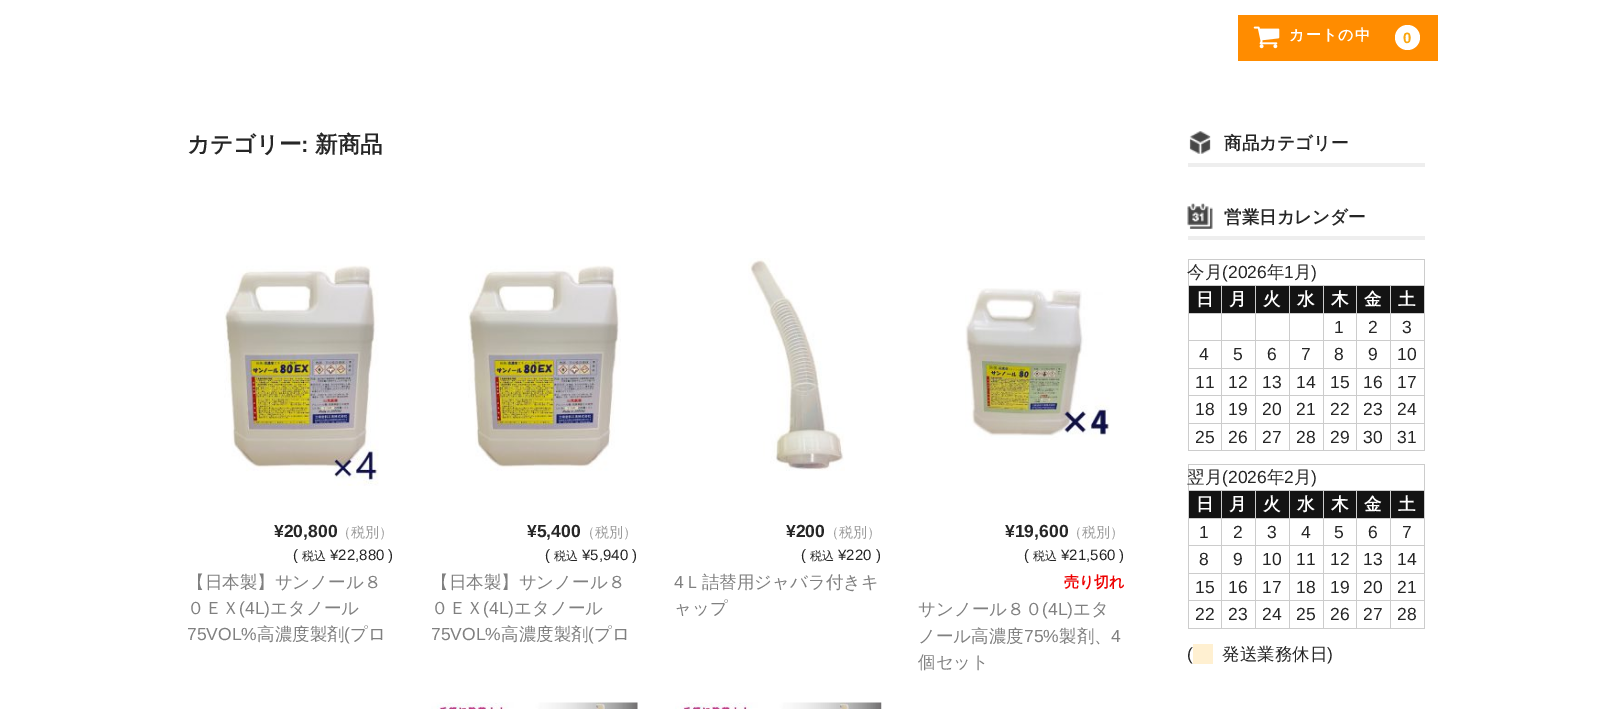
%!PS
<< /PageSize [1623 709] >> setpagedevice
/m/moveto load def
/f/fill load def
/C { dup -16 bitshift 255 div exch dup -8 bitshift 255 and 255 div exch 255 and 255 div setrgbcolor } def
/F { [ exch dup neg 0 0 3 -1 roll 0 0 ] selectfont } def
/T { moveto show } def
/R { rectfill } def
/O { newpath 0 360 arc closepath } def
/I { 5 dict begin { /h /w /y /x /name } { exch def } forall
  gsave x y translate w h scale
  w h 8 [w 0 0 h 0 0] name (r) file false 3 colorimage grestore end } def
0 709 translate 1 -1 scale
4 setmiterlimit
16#FFFFFF C
0 0 1623 709 R
16#FF8C00 C
1238 15 200 46 R
(1.rgb) 1253 26 27 23 I
/WenQuanYiZenHei-Bold 15 F
16#FFFFFF C
1289 40 m 1.25 0 (カートの中) ashow
1407.5 37.5 12.5 O f
/LiberationSans-Bold 15 F
16#FBA60D C
1403 43 m 1.25 0 (0) ashow
/WenQuanYiZenHei-Bold 22.5 F
16#262626 C
(カテゴリー) 187 152 T
/LiberationSans-Bold 22.5 F
(:) 301 152 T
/WenQuanYiZenHei-Bold 22.5 F
(新商品) 315 152 T
(2.rgb) 224 265 155 221 I
/LiberationSans-Bold 17.5 F
(¥20,800) 274 537 T
/WenQuanYiZenHei-Medium 14 F
16#999999 C
(（税別）) 337 537 T
/LiberationSans-Regular 15 F
16#262626 C
(\() 293 560 T
/WenQuanYiZenHei-Medium 12 F
(税込) 302 560 T
/LiberationSans-Regular 15 F
(¥22,880 \)) 330 560 T
/WenQuanYiZenHei-Medium 17.5 F
16#808080 C
(【日本製】サンノール８) 187 588 T
(０ＥＸ) 187 614 T
/LiberationSans-Regular 17.5 F
(\(4L\)) 239 614 T
/WenQuanYiZenHei-Medium 17.5 F
(エタノール) 270 614 T
/LiberationSans-Regular 17.5 F
(75VOL%) 187 640 T
/WenQuanYiZenHei-Medium 17.5 F
(高濃度製剤) 257 640 T
/LiberationSans-Regular 17.5 F
(\() 344 640 T
/WenQuanYiZenHei-Medium 17.5 F
(プロ) 350 640 T
(3.rgb) 468 265 153 206 I
/LiberationSans-Bold 17.5 F
16#262626 C
(¥5,400) 527 537 T
/WenQuanYiZenHei-Medium 14 F
16#999999 C
(（税別）) 581 537 T
/LiberationSans-Regular 15 F
16#262626 C
(\() 545 560 T
/WenQuanYiZenHei-Medium 12 F
(税込) 554 560 T
/LiberationSans-Regular 15 F
(¥5,940 \)) 582 560 T
/WenQuanYiZenHei-Medium 17.5 F
16#808080 C
(【日本製】サンノール８) 431 588 T
(０ＥＸ) 431 614 T
/LiberationSans-Regular 17.5 F
(\(4L\)) 483 614 T
/WenQuanYiZenHei-Medium 17.5 F
(エタノール) 514 614 T
/LiberationSans-Regular 17.5 F
(75VOL%) 431 640 T
/WenQuanYiZenHei-Medium 17.5 F
(高濃度製剤) 501 640 T
/LiberationSans-Regular 17.5 F
(\() 588 640 T
/WenQuanYiZenHei-Medium 17.5 F
(プロ) 594 640 T
(4.rgb) 748 258 97 213 I
/LiberationSans-Bold 17.5 F
16#262626 C
(¥200) 786 537 T
/WenQuanYiZenHei-Medium 14 F
16#999999 C
(（税別）) 825 537 T
/LiberationSans-Regular 15 F
16#262626 C
(\() 801 560 T
/WenQuanYiZenHei-Medium 12 F
(税込) 810 560 T
/LiberationSans-Regular 15 F
(¥220 \)) 838 560 T
/LiberationSans-Regular 17.5 F
16#808080 C
(4) 674 588 T
/WenQuanYiZenHei-Medium 17.5 F
(Ｌ詰替用ジャバラ付きキ) 684 588 T
(ャップ) 674 614 T
(5.rgb) 965 288 145 152 I
/LiberationSans-Bold 17.5 F
16#262626 C
(¥19,600) 1005 537 T
/WenQuanYiZenHei-Medium 14 F
16#999999 C
(（税別）) 1068 537 T
/LiberationSans-Regular 15 F
16#262626 C
(\() 1024 560 T
/WenQuanYiZenHei-Medium 12 F
(税込) 1033 560 T
/LiberationSans-Regular 15 F
(¥21,560 \)) 1061 560 T
/WenQuanYiZenHei-Bold 15 F
16#EE0000 C
(売り切れ) 1064 587 T
/WenQuanYiZenHei-Medium 17.5 F
16#808080 C
(サンノール８０) 918 615 T
/LiberationSans-Regular 17.5 F
(\(4L\)) 1042 615 T
/WenQuanYiZenHei-Medium 17.5 F
(エタ) 1073 615 T
(ノール高濃度) 918 642 T
/LiberationSans-Regular 17.5 F
(75%) 1024 642 T
/WenQuanYiZenHei-Medium 17.5 F
(製剤、) 1059 642 T
/LiberationSans-Regular 17.5 F
(4) 1111 642 T
/WenQuanYiZenHei-Medium 17.5 F
(個セット) 918 668 T
(6.rgb) 431 702 207 7 I
(7.rgb) 675 702 207 7 I
16#EEEEEE C
1188 163 237 4 R
(8.rgb) 1189 131 22 23 I
/WenQuanYiZenHei-Bold 17.5 F
16#262626 C
(商品カテゴリー) 1224 149 T
16#EEEEEE C
1188 236 237 4 R
(9.rgb) 1187 203 26 26 I
16#262626 C
(営業日カレンダー) 1224 223 T
16#CCCCCC C
1188 259 237 1 R
1424 259 1 192 R
1188 450 237 1 R
1188 259 1 192 R
/WenQuanYiZenHei-Medium 17.5 F
16#262626 C
(今月) 1187 278 T
/LiberationSans-Regular 17.5 F
(\(2026) 1222 278 T
/WenQuanYiZenHei-Medium 17.5 F
(年) 1267 278 T
/LiberationSans-Regular 17.5 F
(1) 1284 278 T
/WenQuanYiZenHei-Medium 17.5 F
(月) 1294 278 T
/LiberationSans-Regular 17.5 F
(\)) 1311 278 T
16#131313 C
1189 286 32 27 R
16#CCCCCC C
1390 285 35 1 R
1390 313 35 1 R
1390 340 35 1 R
1390 368 35 1 R
1390 395 35 1 R
1390 423 35 1 R
1390 423 1 28 R
1356 423 35 1 R
1390 395 1 29 R
1356 395 35 1 R
1390 368 1 28 R
1356 368 35 1 R
1390 340 1 29 R
1356 340 35 1 R
1390 313 1 28 R
1356 313 35 1 R
1390 285 1 29 R
1356 285 35 1 R
1356 423 1 28 R
1323 423 35 1 R
1356 395 1 29 R
1323 395 35 1 R
1356 368 1 28 R
1323 368 35 1 R
1356 340 1 29 R
1323 340 35 1 R
1356 313 1 28 R
1323 313 35 1 R
1356 285 1 29 R
1323 285 35 1 R
1323 423 1 28 R
1289 423 35 1 R
1323 395 1 29 R
1289 395 35 1 R
1323 368 1 28 R
1289 368 35 1 R
1323 340 1 29 R
1289 340 35 1 R
1323 313 1 28 R
1289 313 35 1 R
1323 285 1 29 R
1289 285 35 1 R
1289 423 1 28 R
1255 423 35 1 R
1289 395 1 29 R
1255 395 35 1 R
1289 368 1 28 R
1255 368 35 1 R
1289 340 1 29 R
1255 340 35 1 R
1289 313 1 28 R
1255 313 35 1 R
1289 285 1 29 R
1255 285 35 1 R
1255 423 1 28 R
1221 423 35 1 R
1255 395 1 29 R
1221 395 35 1 R
1255 368 1 28 R
1221 368 35 1 R
1255 340 1 29 R
1221 340 35 1 R
1255 313 1 28 R
1221 313 35 1 R
1255 285 1 29 R
1221 285 35 1 R
1221 423 1 28 R
1188 423 35 1 R
1221 395 1 29 R
1188 395 35 1 R
1221 368 1 28 R
1188 368 35 1 R
1221 340 1 29 R
1188 340 35 1 R
1221 313 1 28 R
1188 313 35 1 R
1221 285 1 29 R
1188 285 35 1 R
/WenQuanYiZenHei-Bold 17.5 F
16#FFFFFF C
(日) 1196 305 T
16#131313 C
1222 286 33 27 R
16#FFFFFF C
(月) 1229 305 T
16#131313 C
1256 286 33 27 R
16#FFFFFF C
(火) 1263 305 T
16#131313 C
1290 286 33 27 R
16#FFFFFF C
(水) 1297 305 T
16#131313 C
1324 286 32 27 R
16#FFFFFF C
(木) 1331 305 T
16#131313 C
1357 286 33 27 R
16#FFFFFF C
(金) 1364 305 T
16#131313 C
1391 286 33 27 R
16#FFFFFF C
(土) 1398 305 T
/LiberationSans-Regular 17.5 F
16#262626 C
(1) 1334 333 T
(2) 1368 333 T
(3) 1402 333 T
(4) 1199 360 T
(5) 1233 360 T
(6) 1267 360 T
(7) 1301 360 T
(8) 1334 360 T
(9) 1368 360 T
(10) 1397 360 T
(11) 1195 388 T
(12) 1228 388 T
(13) 1262 388 T
(14) 1296 388 T
(15) 1330 388 T
(16) 1363 388 T
(17) 1397 388 T
(18) 1195 415 T
(19) 1228 415 T
(20) 1262 415 T
(21) 1296 415 T
(22) 1330 415 T
(23) 1363 415 T
(24) 1397 415 T
(25) 1195 443 T
(26) 1228 443 T
(27) 1262 443 T
(28) 1296 443 T
(29) 1330 443 T
(30) 1363 443 T
(31) 1397 443 T
16#CCCCCC C
1188 464 237 1 R
1424 464 1 165 R
1188 628 237 1 R
1188 464 1 165 R
/WenQuanYiZenHei-Medium 17.5 F
16#262626 C
(翌月) 1187 483 T
/LiberationSans-Regular 17.5 F
(\(2026) 1222 483 T
/WenQuanYiZenHei-Medium 17.5 F
(年) 1267 483 T
/LiberationSans-Regular 17.5 F
(2) 1284 483 T
/WenQuanYiZenHei-Medium 17.5 F
(月) 1294 483 T
/LiberationSans-Regular 17.5 F
(\)) 1311 483 T
16#131313 C
1189 491 32 27 R
16#CCCCCC C
1390 490 35 1 R
1390 518 35 1 R
1390 545 35 1 R
1390 573 35 1 R
1390 600 35 1 R
1390 600 1 29 R
1356 600 35 1 R
1390 573 1 28 R
1356 573 35 1 R
1390 545 1 29 R
1356 545 35 1 R
1390 518 1 28 R
1356 518 35 1 R
1390 490 1 29 R
1356 490 35 1 R
1356 600 1 29 R
1323 600 35 1 R
1356 573 1 28 R
1323 573 35 1 R
1356 545 1 29 R
1323 545 35 1 R
1356 518 1 28 R
1323 518 35 1 R
1356 490 1 29 R
1323 490 35 1 R
1323 600 1 29 R
1289 600 35 1 R
1323 573 1 28 R
1289 573 35 1 R
1323 545 1 29 R
1289 545 35 1 R
1323 518 1 28 R
1289 518 35 1 R
1323 490 1 29 R
1289 490 35 1 R
1289 600 1 29 R
1255 600 35 1 R
1289 573 1 28 R
1255 573 35 1 R
1289 545 1 29 R
1255 545 35 1 R
1289 518 1 28 R
1255 518 35 1 R
1289 490 1 29 R
1255 490 35 1 R
1255 600 1 29 R
1221 600 35 1 R
1255 573 1 28 R
1221 573 35 1 R
1255 545 1 29 R
1221 545 35 1 R
1255 518 1 28 R
1221 518 35 1 R
1255 490 1 29 R
1221 490 35 1 R
1221 600 1 29 R
1188 600 35 1 R
1221 573 1 28 R
1188 573 35 1 R
1221 545 1 29 R
1188 545 35 1 R
1221 518 1 28 R
1188 518 35 1 R
1221 490 1 29 R
1188 490 35 1 R
/WenQuanYiZenHei-Bold 17.5 F
16#FFFFFF C
(日) 1196 510 T
16#131313 C
1222 491 33 27 R
16#FFFFFF C
(月) 1229 510 T
16#131313 C
1256 491 33 27 R
16#FFFFFF C
(火) 1263 510 T
16#131313 C
1290 491 33 27 R
16#FFFFFF C
(水) 1297 510 T
16#131313 C
1324 491 32 27 R
16#FFFFFF C
(木) 1331 510 T
16#131313 C
1357 491 33 27 R
16#FFFFFF C
(金) 1364 510 T
16#131313 C
1391 491 33 27 R
16#FFFFFF C
(土) 1398 510 T
/LiberationSans-Regular 17.5 F
16#262626 C
(1) 1199 538 T
(2) 1233 538 T
(3) 1267 538 T
(4) 1301 538 T
(5) 1334 538 T
(6) 1368 538 T
(7) 1402 538 T
(8) 1199 565 T
(9) 1233 565 T
(10) 1262 565 T
(11) 1296 565 T
(12) 1330 565 T
(13) 1363 565 T
(14) 1397 565 T
(15) 1195 593 T
(16) 1228 593 T
(17) 1262 593 T
(18) 1296 593 T
(19) 1330 593 T
(20) 1363 593 T
(21) 1397 593 T
(22) 1195 620 T
(23) 1228 620 T
(24) 1262 620 T
(25) 1296 620 T
(26) 1330 620 T
(27) 1363 620 T
(28) 1397 620 T
(\() 1187 660 T
16#FFF0D1 C
1193 644 20 20 R
/WenQuanYiZenHei-Medium 17.5 F
16#262626 C
(発送業務休日) 1222 660 T
/LiberationSans-Regular 17.5 F
(\)) 1327 660 T
showpage
